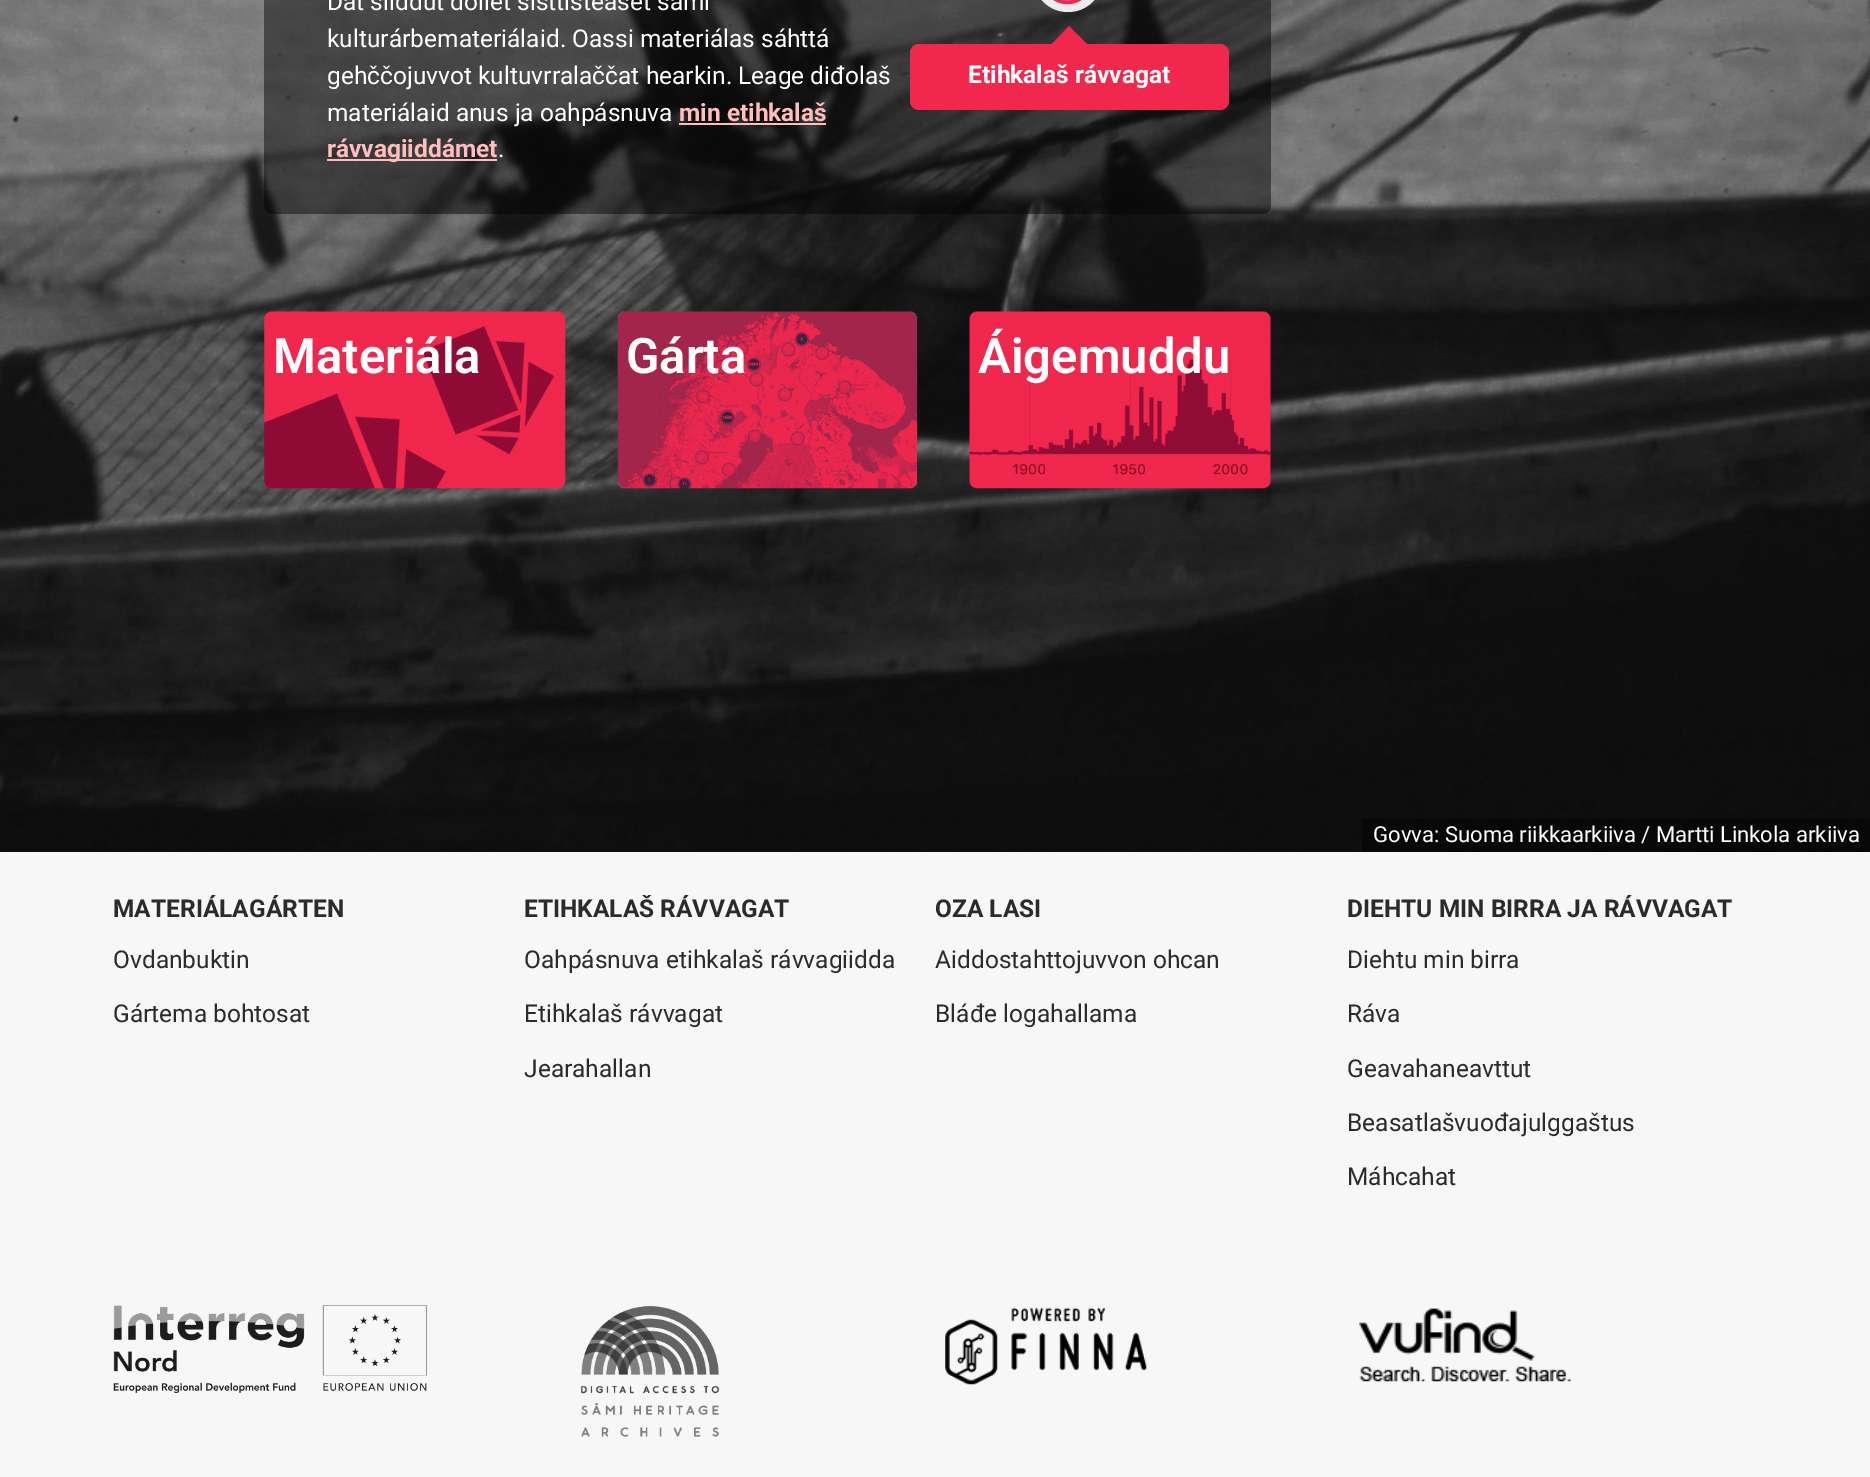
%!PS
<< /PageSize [1870 1477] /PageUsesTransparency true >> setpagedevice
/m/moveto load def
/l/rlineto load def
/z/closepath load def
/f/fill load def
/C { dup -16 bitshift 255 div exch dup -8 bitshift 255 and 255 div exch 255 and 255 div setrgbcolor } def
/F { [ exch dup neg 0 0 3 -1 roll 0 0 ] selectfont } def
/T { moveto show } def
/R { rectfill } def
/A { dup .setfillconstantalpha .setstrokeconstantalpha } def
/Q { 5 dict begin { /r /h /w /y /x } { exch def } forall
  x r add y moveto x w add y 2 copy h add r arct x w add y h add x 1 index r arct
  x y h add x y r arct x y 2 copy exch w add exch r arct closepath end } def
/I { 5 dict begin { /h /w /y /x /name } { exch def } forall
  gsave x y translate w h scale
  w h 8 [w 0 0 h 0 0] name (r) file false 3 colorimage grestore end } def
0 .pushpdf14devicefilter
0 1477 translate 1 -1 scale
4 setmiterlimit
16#FFFFFF C
0 0 1870 1477 R
(1.rgb) 0 0 1870 852 I
0.46 A
16#000000 C
264 -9 1007 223 9 Q f
/Roboto-Regular 24.5 F
1 A
16#FFFFFF C
(Dát siiddut dollet sisttisteaset sámi) 327 10 T
(kulturárbemateriálaid. Oassi materiálas sáhttá) 327 47 T
(gehččojuvvot kultuvrralaččat hearkin. Leage diđolaš) 327 84 T
(materiálaid anus ja oahpásnuva) 327 121 T
/Roboto-Bold 24.5 F
16#FFBDBE C
(min etihkalaš) 679 121 T
679 123 147 2 R
327 159 170 2 R
(rávvagiiddámet) 327 157 T
/Roboto-Regular 24.5 F
16#FFFFFF C
(.) 498 157 T
0.9 A
1033 -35 70 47 35 Q f
1 A
(2.rgb) 1053 0 29 5 I
16#F1274E C
910 44 319 66 9 Q f
1087 44 m -35 0 l 17 -18 l z f
/Roboto-Bold 24.5 F
16#FFFFFF C
(Etihkalaš rávvagat) 968 83 T
(3.rgb) 264 311 302 178 I
/Roboto-SemiBold 49 F
(Materiála) 273 373 T
(4.rgb) 617 311 300 178 I
(Gárta) 626 373 T
(5.rgb) 969 311 302 178 I
(Áigemuddu) 978 373 T
0.46 A
16#000000 C
1362 819 508 33 R
/Roboto-Regular 22.05 F
1 A
16#FFFFFF C
(Govva: Suoma riikkaarkiiva / Martti Linkola arkiiva) 1373 842 T
16#F7F7F7 C
0 852 1870 625 R
/Roboto-Bold 24.5 F
16#2B2B2B C
(MATERIÁLAGÁRTEN) 113 917 T
/Roboto-Regular 24.5 F
(Ovdanbuktin) 113 968 T
(Gártema bohtosat) 113 1022 T
/Roboto-Bold 24.5 F
(ETIHKALAŠ RÁVVAGAT) 524 917 T
/Roboto-Regular 24.5 F
(Oahpásnuva etihkalaš rávvagiidda) 524 968 T
(Etihkalaš rávvagat) 524 1022 T
(Jearahallan) 524 1077 T
/Roboto-Bold 24.5 F
(OZA LASI) 935 917 T
/Roboto-Regular 24.5 F
(Aiddostahttojuvvon ohcan) 935 968 T
(Bláđe logahallama) 935 1022 T
/Roboto-Bold 24.5 F
(DIEHTU MIN BIRRA JA RÁVVAGAT) 1347 917 T
/Roboto-Regular 24.5 F
(Diehtu min birra) 1347 968 T
(Ráva) 1347 1022 T
(Geavahaneavttut) 1347 1077 T
(Beasatlašvuođajulggaštus) 1347 1131 T
(Máhcahat) 1347 1185 T
(6.rgb) 113 1305 314 88 I
(7.rgb) 581 1306 139 131 I
(8.rgb) 945 1307 202 78 I
(9.rgb) 1359 1308 212 74 I
.poppdf14devicefilter showpage
